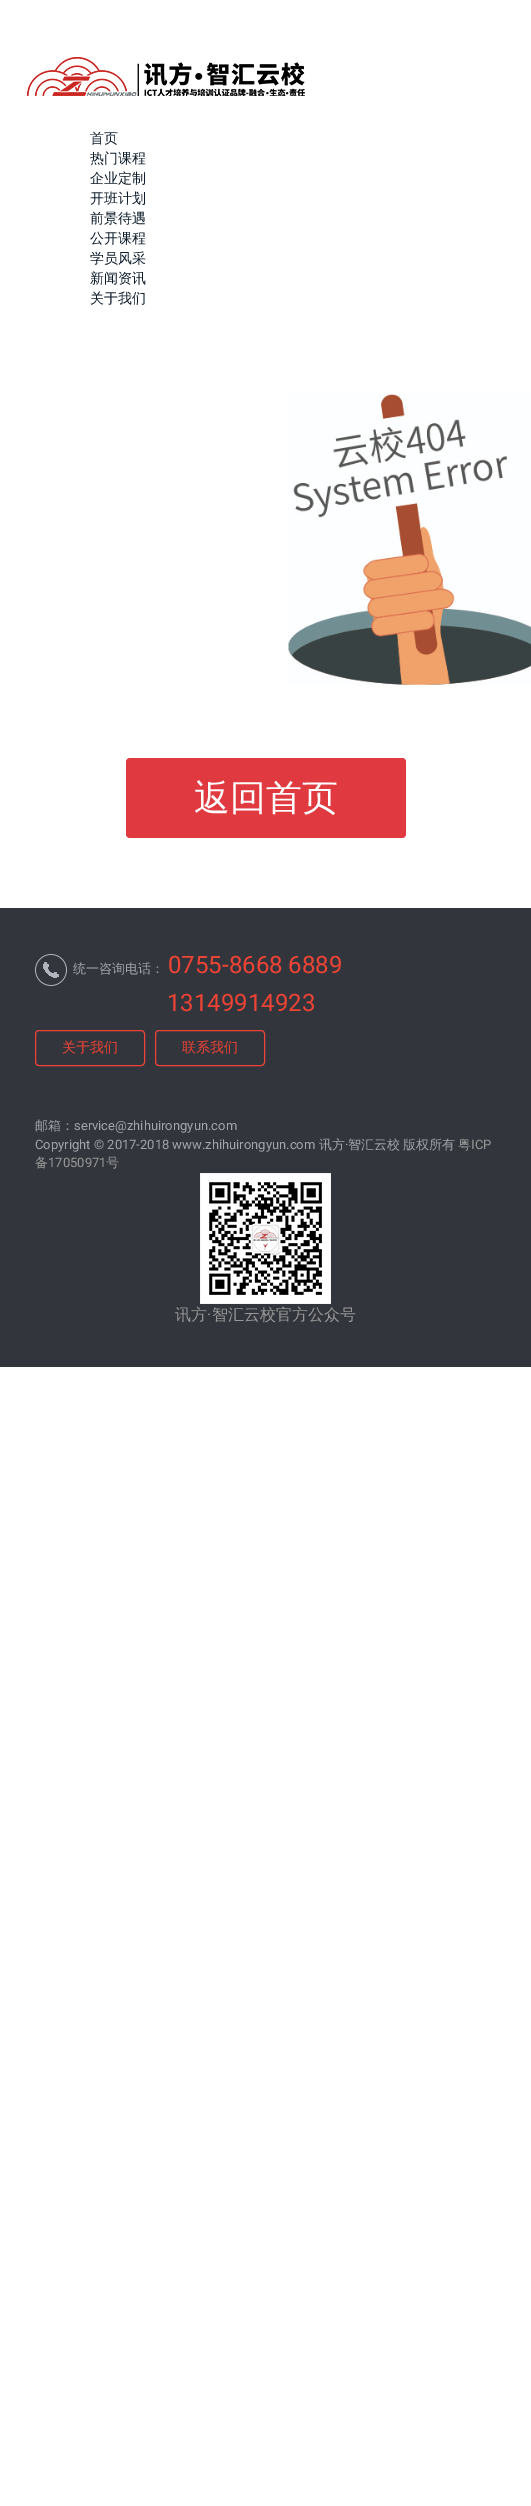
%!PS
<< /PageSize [531 2506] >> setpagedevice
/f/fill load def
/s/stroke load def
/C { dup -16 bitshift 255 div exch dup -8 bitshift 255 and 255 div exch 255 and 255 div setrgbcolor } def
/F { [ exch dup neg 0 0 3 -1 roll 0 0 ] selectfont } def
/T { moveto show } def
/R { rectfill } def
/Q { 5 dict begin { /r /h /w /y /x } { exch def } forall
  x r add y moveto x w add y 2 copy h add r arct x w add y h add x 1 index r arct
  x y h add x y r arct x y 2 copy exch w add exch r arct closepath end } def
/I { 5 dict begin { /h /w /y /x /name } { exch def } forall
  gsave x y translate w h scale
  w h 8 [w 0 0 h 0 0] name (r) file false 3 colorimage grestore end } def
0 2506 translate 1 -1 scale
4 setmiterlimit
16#FFFFFF C
0 0 531 2506 R
(1.rgb) 27 57 278 39 I
/WenQuanYiZenHei-Medium 14 F
16#0D1C2B C
(首页) 90 143 T
(热门课程) 90 163 T
(企业定制) 90 183 T
(开班计划) 90 203 T
(前景待遇) 90 223 T
(公开课程) 90 243 T
(学员风采) 90 263 T
(新闻资讯) 90 283 T
(关于我们) 90 303 T
(2.rgb) 288 394 243 291 I
16#E03A40 C
126 758 280 80 4 Q f
/WenQuanYiZenHei-Medium 36 F
16#FFFFFF C
(返回首页) 194 810 T
16#33353C C
0 908 531 459 R
(3.rgb) 35 954 32 32 I
/WenQuanYiZenHei-Medium 13 F
16#A2A5AE C
(统一咨询电话：) 73 973 T
/Roboto-Regular 24 F
16#EF4335 C
(0755-8668 6889) 168 973 T
(13149914923) 167 1011 T
35.5 1030.5 109 35 3.5 Q s
/WenQuanYiZenHei-Medium 14 F
(关于我们) 62 1052 T
155.5 1030.5 109 35 3.5 Q s
(联系我们) 182 1052 T
/WenQuanYiZenHei-Medium 13 F
16#A2A5AE C
(邮箱：) 35 1130 T
/Roboto-Regular 13 F
(service@zhihuirongyun.com) 74 1130 T
(Copyright © 2017-2018 www.zhihuirongyun.com) 35 1149 T
/WenQuanYiZenHei-Medium 13 F
(讯方) 319 1149 T
/Roboto-Regular 13 F
(·) 345 1149 T
/WenQuanYiZenHei-Medium 13 F
(智汇云校) 348 1149 T
(版权所有) 403 1149 T
16#999999 C
(粤) 458 1149 T
/Roboto-Regular 13 F
(ICP) 471 1149 T
/WenQuanYiZenHei-Medium 13 F
(备) 35 1167 T
/Roboto-Regular 13 F
(17050971) 48 1167 T
/WenQuanYiZenHei-Medium 13 F
(号) 106 1167 T
(4.rgb) 200 1173 131 131 I
/WenQuanYiZenHei-Medium 16 F
(讯方) 175 1320 T
/Roboto-Regular 16 F
(·) 207 1320 T
/WenQuanYiZenHei-Medium 16 F
(智汇云校官方公众号) 212 1320 T
showpage
